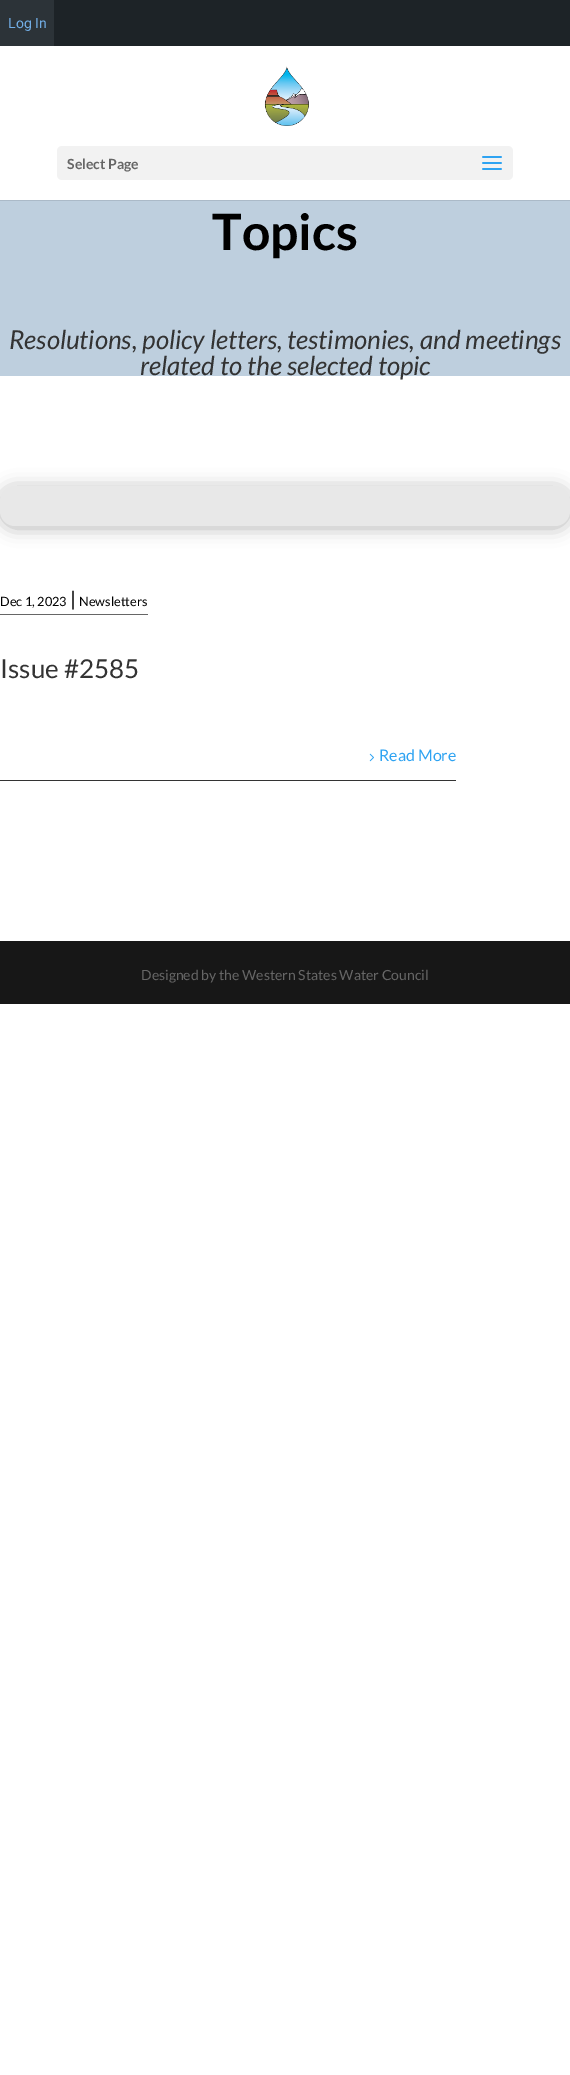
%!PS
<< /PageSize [570 2075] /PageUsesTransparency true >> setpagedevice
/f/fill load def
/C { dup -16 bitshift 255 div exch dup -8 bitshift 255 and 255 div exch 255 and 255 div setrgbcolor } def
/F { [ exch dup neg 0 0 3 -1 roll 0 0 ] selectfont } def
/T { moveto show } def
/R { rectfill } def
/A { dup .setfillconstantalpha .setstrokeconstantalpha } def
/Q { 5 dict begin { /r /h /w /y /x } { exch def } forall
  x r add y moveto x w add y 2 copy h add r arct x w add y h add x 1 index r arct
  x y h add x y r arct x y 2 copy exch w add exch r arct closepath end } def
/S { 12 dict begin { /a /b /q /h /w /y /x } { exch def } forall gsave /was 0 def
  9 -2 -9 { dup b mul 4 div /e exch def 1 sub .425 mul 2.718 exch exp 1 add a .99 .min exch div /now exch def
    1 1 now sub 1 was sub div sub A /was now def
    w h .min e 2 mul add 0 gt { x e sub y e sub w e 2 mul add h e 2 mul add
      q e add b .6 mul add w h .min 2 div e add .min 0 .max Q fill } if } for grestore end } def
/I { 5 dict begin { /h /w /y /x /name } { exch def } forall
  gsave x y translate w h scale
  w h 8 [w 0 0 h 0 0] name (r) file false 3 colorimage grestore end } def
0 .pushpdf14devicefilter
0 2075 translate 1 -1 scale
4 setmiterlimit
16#FFFFFF C
0 0 570 2075 R
16#1D2327 C
54 0 516 46 R
16#2C3338 C
0 0 54 46 R
/Roboto-Regular 14 F
16#72AEE6 C
(Log In) 8 28 T
16#ABBAC8 C
0 200 570 1 R
(1.rgb) 264 66 45 60 I
16#F2F2F2 C
57 146 456 34 5 Q f
/Lato-Bold 14 F
16#666666 C
(Select Page) 67 169 T
(2.rgb) 482 156 20 14 I
16#BECFDE C
0 201 570 175 R
/Lato-Bold 50 F
16#000000 C
(Topics) 212 250 T
/Lato-Italic 26 F
16#333333 C
(Resolutions, policy letters, testimonies, and meetings) 9 349 T
(related to the selected topic) 140 375 T
16#000000 C
0 488 570 40 15 9 .3 S
16#E8E8E8 C
0 486 570 40 15 Q f
16#333333 C
0 780 456 1 R
/Lato-Regular 12.75 F
16#000000 C
(Dec 1, 2023) 0 606 T
/Lato-Regular 20 F
(|) 70 606 T
/Lato-Regular 12.75 F
(Newsletters) 79 606 T
16#666666 C
0 614 148 1 R
/Lato-Regular 26 F
16#333333 C
(Issue #2585) 0 678 T
(3.rgb) 369 753 5 9 I
/Lato-Regular 16 F
16#2EA3F2 C
(Read More) 379 761 T
16#171717 C
0 941 570 63 R
/Lato-Regular 14 F
16#666666 C
(Designed by the Western States Water Council) 141 980 T
.poppdf14devicefilter showpage
